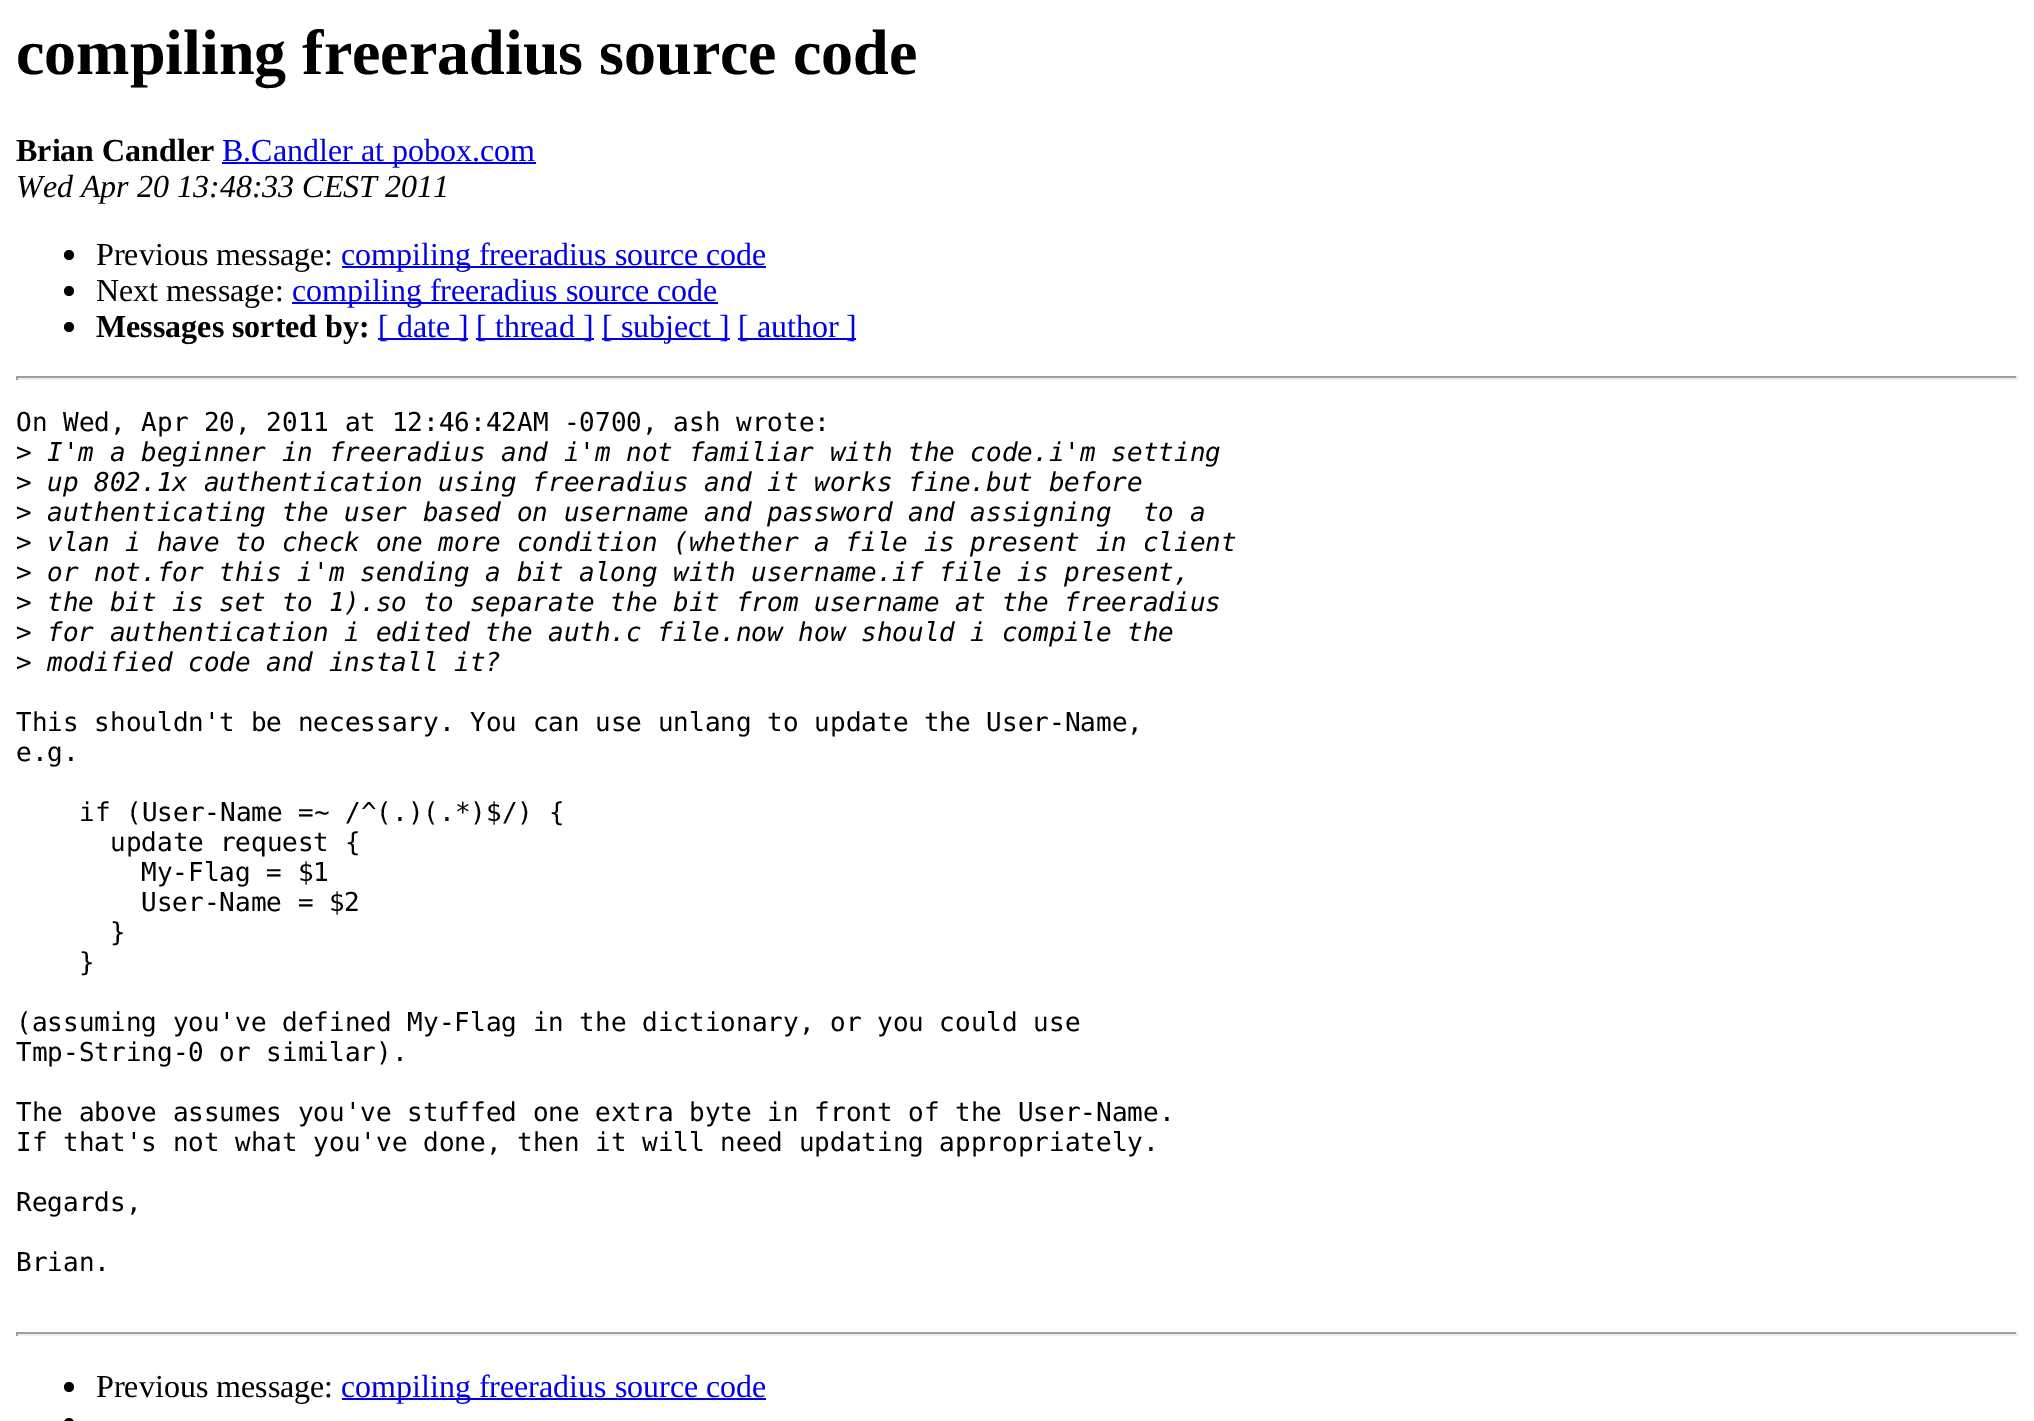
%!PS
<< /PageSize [2034 1421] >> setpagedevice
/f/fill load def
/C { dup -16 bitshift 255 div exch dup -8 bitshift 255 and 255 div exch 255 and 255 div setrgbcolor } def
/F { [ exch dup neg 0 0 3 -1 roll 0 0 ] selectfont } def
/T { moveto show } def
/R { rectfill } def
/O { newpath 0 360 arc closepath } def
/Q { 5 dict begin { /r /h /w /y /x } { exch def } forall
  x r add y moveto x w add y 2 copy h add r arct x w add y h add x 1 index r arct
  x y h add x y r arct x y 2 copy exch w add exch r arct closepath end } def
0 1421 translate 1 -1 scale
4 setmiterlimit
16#FFFFFF C
0 0 2034 1421 R
/LiberationSerif-Bold 64 F
16#000000 C
(compiling freeradius source code) 16 74 T
/LiberationSerif-Bold 32 F
(Brian Candler) 16 161 T
16#0000EE C
222 162 314 2 R
/LiberationSerif-Regular 32 F
(B.Candler at pobox.com) 222 161 T
/LiberationSerif-Italic 32 F
16#000000 C
(Wed Apr 20 13:48:33 CEST 2011) 16 197 T
69 255 5 O f
/LiberationSerif-Regular 32 F
(Previous message:) 96 265 T
16#0000EE C
342 266 424 2 R
(compiling freeradius source code) 341 265 T
16#000000 C
69 291 5 O f
(Next message:) 96 301 T
16#0000EE C
292 302 426 2 R
(compiling freeradius source code) 292 301 T
16#000000 C
69 327 5 O f
/LiberationSerif-Bold 32 F
(Messages sorted by:) 96 337 T
16#0000EE C
378 338 90 2 R
/LiberationSerif-Regular 32 F
([ date ]) 378 337 T
476 338 118 2 R
([ thread ]) 476 337 T
602 338 128 2 R
([ subject ]) 602 337 T
738 338 118 2 R
([ author ]) 738 337 T
16#9F9F9F C
16 376 2002 2 R
16#EEEEEE C
2016 376 2 4 R
16 378 2002 2 R
16#9F9F9F C
16 376 2 4 R
/DejaVuSansMono-Regular 26 F
16#000000 C
(On Wed, Apr 20, 2011 at 12:46:42AM -0700, ash wrote:) 16 431 T
(>) 16 461 T
/DejaVuSansMono-Italic 26 F
(I'm a beginner in freeradius and i'm not familiar with the code.i'm setting) 47 461 T
/DejaVuSansMono-Regular 26 F
(>) 16 491 T
/DejaVuSansMono-Italic 26 F
(up 802.1x authentication using freeradius and it works fine.but before) 47 491 T
/DejaVuSansMono-Regular 26 F
(>) 16 521 T
/DejaVuSansMono-Italic 26 F
(authenticating the user based on username and password and assigning  to a) 47 521 T
/DejaVuSansMono-Regular 26 F
(>) 16 551 T
/DejaVuSansMono-Italic 26 F
(vlan i have to check one more condition \(whether a file is present in client) 47 551 T
/DejaVuSansMono-Regular 26 F
(>) 16 581 T
/DejaVuSansMono-Italic 26 F
(or not.for this i'm sending a bit along with username.if file is present,) 47 581 T
/DejaVuSansMono-Regular 26 F
(>) 16 611 T
/DejaVuSansMono-Italic 26 F
(the bit is set to 1\).so to separate the bit from username at the freeradius) 47 611 T
/DejaVuSansMono-Regular 26 F
(>) 16 641 T
/DejaVuSansMono-Italic 26 F
(for authentication i edited the auth.c file.now how should i compile the) 47 641 T
/DejaVuSansMono-Regular 26 F
(>) 16 671 T
/DejaVuSansMono-Italic 26 F
(modified code and install it?) 47 671 T
/DejaVuSansMono-Regular 26 F
(This shouldn't be necessary. You can use unlang to update the User-Name,) 16 731 T
(e.g.) 16 761 T
(if \(User-Name =~ /^\(.\)\(.*\)$/\) {) 79 821 T
(update request {) 110 851 T
(My-Flag = $1) 141 881 T
(User-Name = $2) 141 911 T
(}) 110 941 T
(}) 79 971 T
(\(assuming you've defined My-Flag in the dictionary, or you could use) 16 1031 T
(Tmp-String-0 or similar\).) 16 1061 T
(The above assumes you've stuffed one extra byte in front of the User-Name.) 16 1121 T
(If that's not what you've done, then it will need updating appropriately.) 16 1151 T
(Regards,) 16 1211 T
(Brian.) 16 1271 T
16#9F9F9F C
16 1332 2002 2 R
16#EEEEEE C
2016 1332 2 4 R
16 1334 2002 2 R
16#9F9F9F C
16 1332 2 4 R
16#000000 C
69 1387 5 O f
/LiberationSerif-Regular 32 F
(Previous message:) 96 1397 T
16#0000EE C
342 1398 424 2 R
(compiling freeradius source code) 341 1397 T
16#000000 C
64 1418 10 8 5 Q f
showpage
